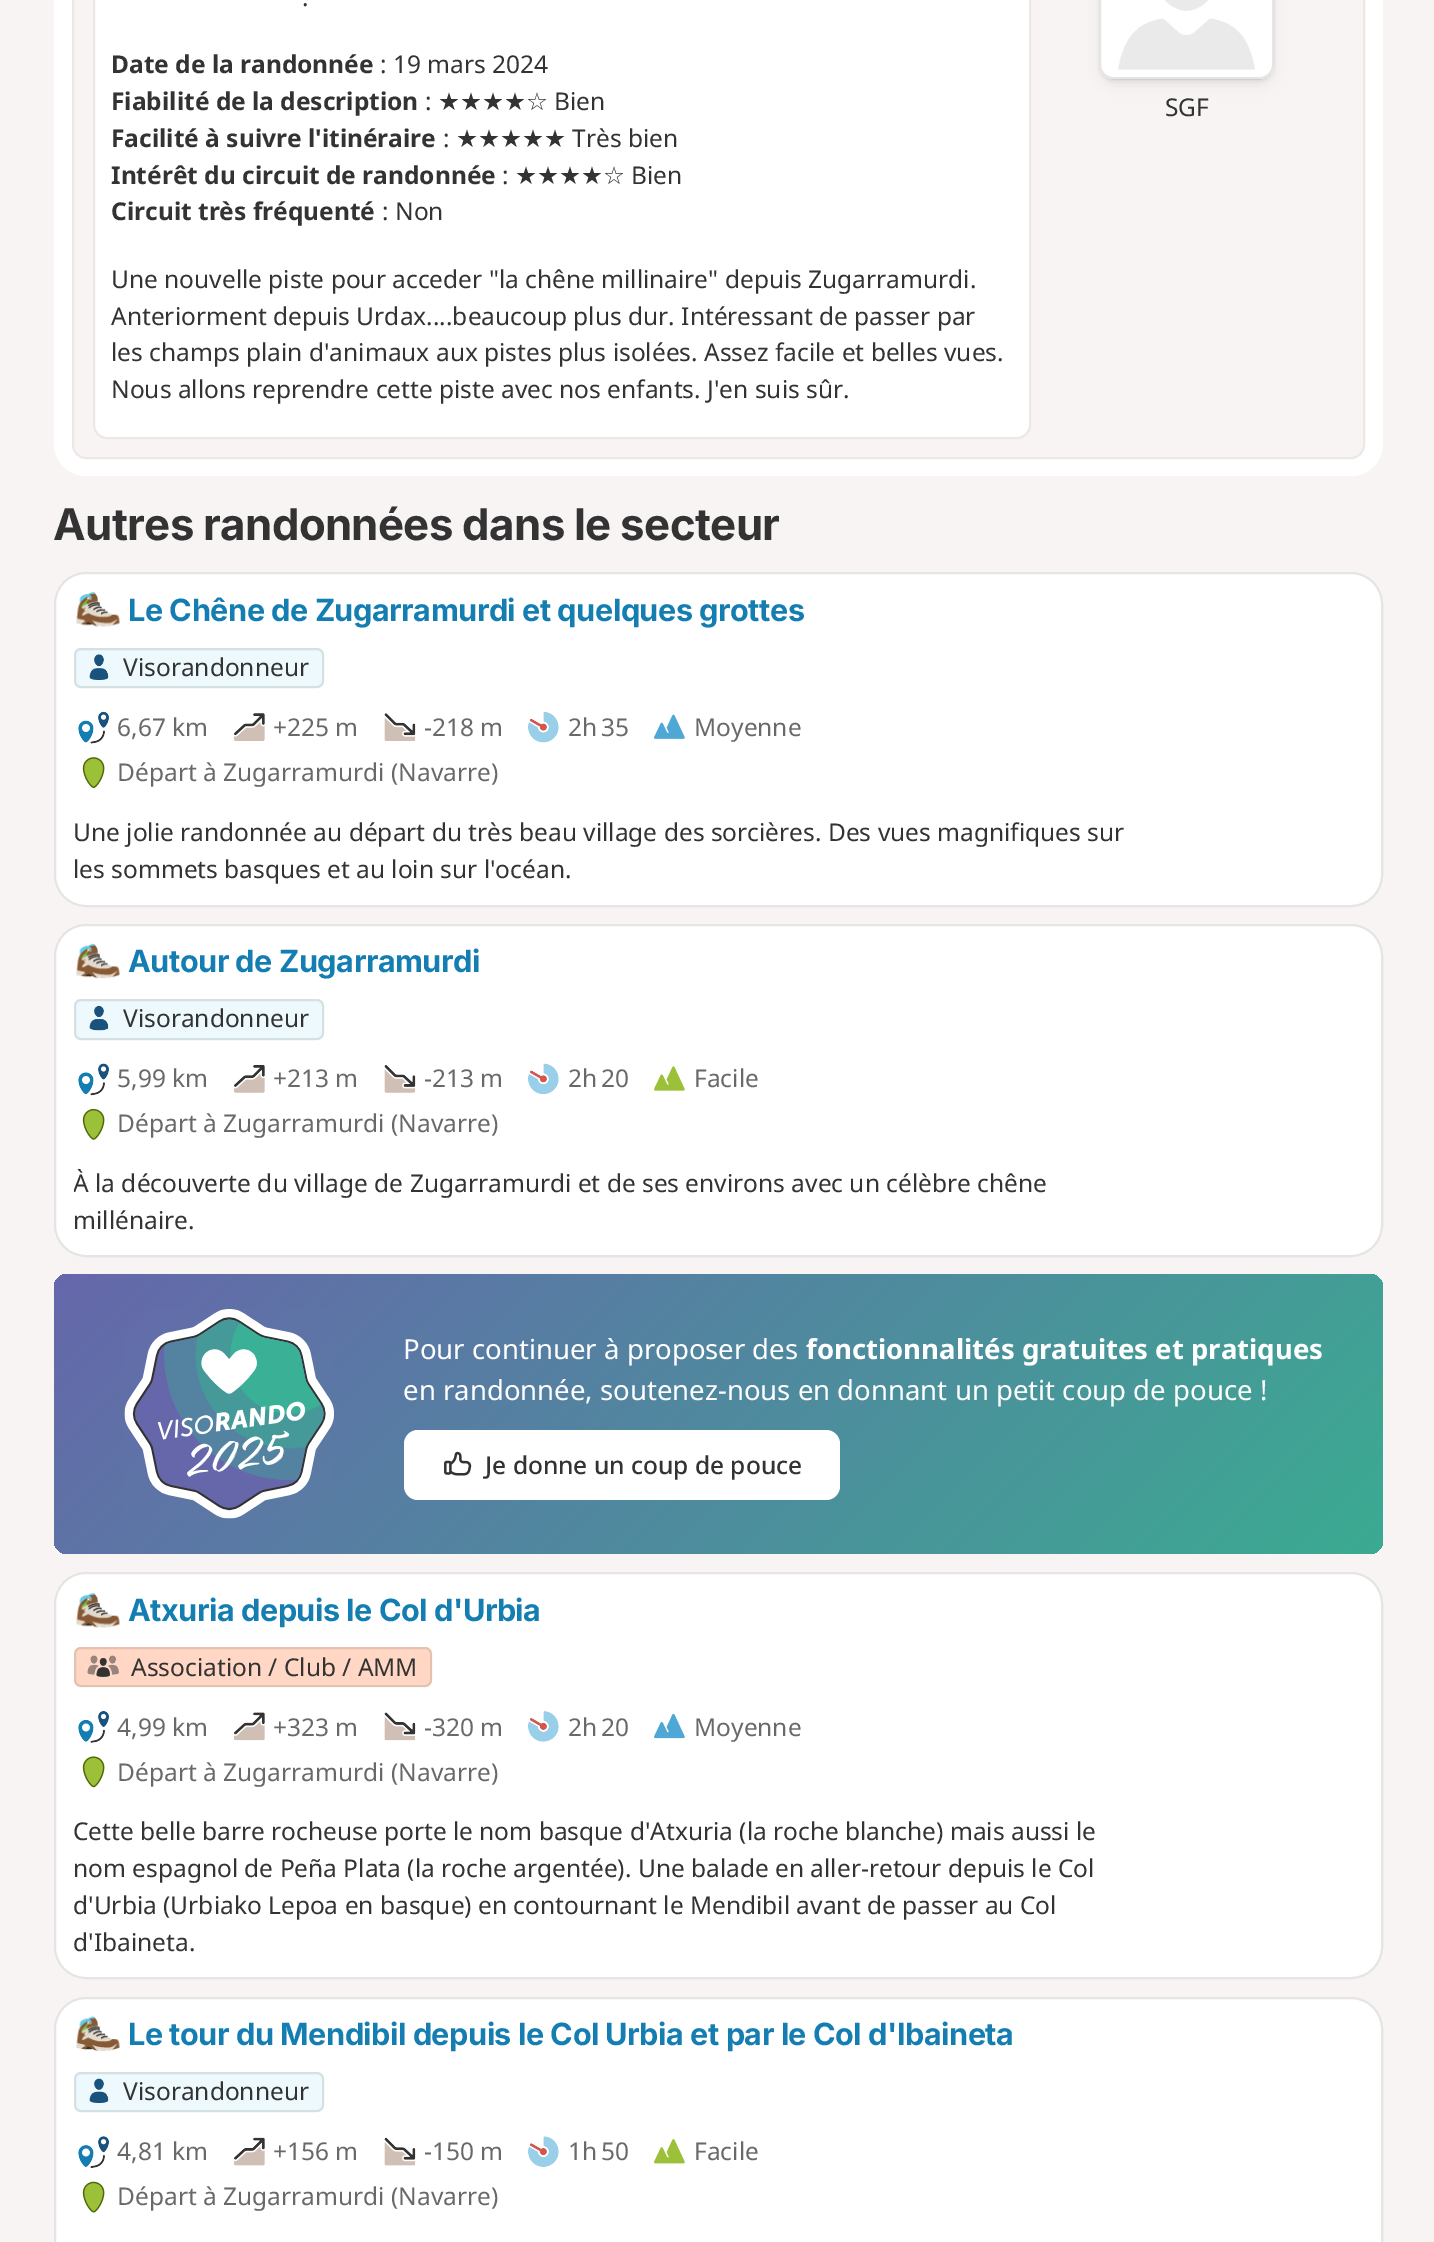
%!PS
<< /PageSize [1434 2242] /PageUsesTransparency true >> setpagedevice
/m/moveto load def
/f/fill load def
/s/stroke load def
/q/gsave load def
/Q_/grestore load def
/w/setlinewidth load def
/C { dup -16 bitshift 255 div exch dup -8 bitshift 255 and 255 div exch 255 and 255 div setrgbcolor } def
/F { [ exch dup neg 0 0 3 -1 roll 0 0 ] selectfont } def
/T { moveto show } def
/R { rectfill } def
/A { dup .setfillconstantalpha .setstrokeconstantalpha } def
/Q { 5 dict begin { /r /h /w /y /x } { exch def } forall
  x r add y moveto x w add y 2 copy h add r arct x w add y h add x 1 index r arct
  x y h add x y r arct x y 2 copy exch w add exch r arct closepath end } def
/S { 12 dict begin { /a /b /q /h /w /y /x } { exch def } forall gsave /was 0 def
  9 -2 -9 { dup b mul 4 div /e exch def 1 sub .425 mul 2.718 exch exp 1 add a .99 .min exch div /now exch def
    1 1 now sub 1 was sub div sub A /was now def
    w h .min e 2 mul add 0 gt { x e sub y e sub w e 2 mul add h e 2 mul add
      q e add b .6 mul add w h .min 2 div e add .min 0 .max Q fill } if } for grestore end } def
/I { 5 dict begin { /h /w /y /x /name } { exch def } forall
  gsave x y translate w h scale
  w h 8 [w 0 0 h 0 0] name (r) file false 3 colorimage grestore end } def
0 .pushpdf14devicefilter
0 2242 translate 1 -1 scale
4 setmiterlimit
16#F7F4F3 C
0 0 1434 2242 R
16#FFFFFF C
54 -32 1329 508 32 Q f
16#F7F4F3 C
73 -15 1291 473 13 Q q f Q_
16#EDE8E3 C
2 w
s
16#FFFFFF C
94 -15 936 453 13 Q q f Q_
16#EDE8E3 C
s
/NotoSans-Regular 24.5 F
16#333333 C
(.) 302 6 T
/NotoSans-Bold 24.5 F
(Date de la randonnée) 111 73 T
/NotoSans-Regular 24.5 F
(: 19 mars 2024) 380 73 T
/NotoSans-Bold 24.5 F
(Fiabilité de la description) 111 110 T
/NotoSans-Regular 24.5 F
(:) 425 110 T
/DejaVuSans-Regular 24.5 F
(★★★★☆) 438 110 T
/NotoSans-Regular 24.5 F
(Bien) 554 110 T
/NotoSans-Bold 24.5 F
(Facilité à suivre l'itinéraire) 111 147 T
/NotoSans-Regular 24.5 F
(:) 443 147 T
/DejaVuSans-Regular 24.5 F
(★★★★★) 456 147 T
/NotoSans-Regular 24.5 F
(Très bien) 572 147 T
/NotoSans-Bold 24.5 F
(Intérêt du circuit de randonnée) 111 184 T
/NotoSans-Regular 24.5 F
(:) 502 184 T
/DejaVuSans-Regular 24.5 F
(★★★★☆) 515 184 T
/NotoSans-Regular 24.5 F
(Bien) 631 184 T
/NotoSans-Bold 24.5 F
(Circuit très fréquenté) 111 220 T
/NotoSans-Regular 24.5 F
(: Non) 382 220 T
(Une nouvelle piste pour acceder "la chêne millinaire" depuis Zugarramurdi.) 111 288 T
(Anteriorment depuis Urdax....beaucoup plus dur. Intéressant de passer par) 111 325 T
(les champs plain d'animaux aux pistes plus isolées. Assez facile et belles vues.) 111 361 T
(Nous allons reprendre cette piste avec nos enfants. J'en suis sûr.) 111 398 T
16#000000 C
1103 -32 168 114 11 7 .1 S
1101 -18 171 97 12 2 .15 S
16#FFFFFF C
1099 -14 175 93 14 Q f
0.1 A
16#000000 C
1100 -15 173 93 13 Q s
1 A
(1.rgb) 1118 0 137 70 I
16#333333 C
(SGF) 1165 116 T
/Inter-Bold 43.75 F
53 540 m -.65 0 (Autres randonnées dans le secteur) ashow
16#FFFFFF C
54 572 1329 335 32 Q f
0.1 A
16#000000 C
55 573 1327 333 31 Q s
1 A
(2.rgb) 76 592 44 35 I
/Inter-Bold 30.6 F
16#147EB3 C
128 621 m -.45 0 (Le Chêne de Zugarramurdi et quelques grottes) ashow
16#EDF9FC C
74 648 250 40 7 Q f
0.1 A
16#000000 C
75 649 248 38 6 Q s
1 A
(3.rgb) 89 654 20 26 I
/NotoSans-Regular 24.5 F
16#333333 C
(Visorandonneur) 123 676 T
(4.rgb) 78 711 31 33 I
16#696969 C
(6,67 km) 117 736 T
(5.rgb) 234 713 31 28 I
(+225 m) 273 736 T
(6.rgb) 384 713 32 28 I
(-218 m) 424 736 T
(7.rgb) 528 712 31 31 I
(2h 35) 568 736 T
(8.rgb) 654 714 31 25 I
(Moyenne) 694 736 T
(9.rgb) 82 757 23 31 I
(Départ à Zugarramurdi \(Navarre\)) 117 781 T
16#333333 C
(Une jolie randonnée au départ du très beau village des sorcières. Des vues magnifiques sur) 73 841 T
(les sommets basques et au loin sur l'océan.) 73 878 T
16#FFFFFF C
54 924 1329 333 32 Q f
0.1 A
16#000000 C
55 925 1327 331 31 Q s
1 A
(10.rgb) 76 943 44 36 I
/Inter-Bold 30.6 F
16#147EB3 C
128 972 m -.45 0 (Autour de Zugarramurdi) ashow
16#EDF9FC C
74 999 250 41 7 Q f
0.1 A
16#000000 C
75 1000 248 39 6 Q s
1 A
(11.rgb) 89 1005 20 26 I
/NotoSans-Regular 24.5 F
16#333333 C
(Visorandonneur) 123 1027 T
(12.rgb) 78 1063 31 33 I
16#696969 C
(5,99 km) 117 1087 T
(13.rgb) 234 1065 31 28 I
(+213 m) 273 1087 T
(14.rgb) 384 1065 32 28 I
(-213 m) 424 1087 T
(15.rgb) 528 1063 31 32 I
(2h 20) 568 1087 T
(16.rgb) 654 1066 31 25 I
(Facile) 694 1087 T
(17.rgb) 82 1108 23 32 I
(Départ à Zugarramurdi \(Navarre\)) 117 1132 T
q
74 1164 1062 73 rectclip
16#333333 C
(À la découverte du village de Zugarramurdi et de ses environs avec un célèbre chêne) 73 1192 T
Q_
16#333333 C
(millénaire.) 73 1229 T
q 54 1274 1329 280 14 Q clip newpath
<< /ShadingType 2 /ColorSpace /DeviceRGB /Coords [316 1012 1120 1816] /Extend [true true] /Function << /FunctionType 2 /Domain [0 1] /C0 [.4 .404 .671] /C1 [.231 .671 .573] /N 1 >> >> shfill Q_
(18.rgb) 124 1309 210 210 I
/NotoSans-Regular 27.55 F
16#FFFFFF C
(Pour continuer à proposer des) 403 1359 T
/NotoSans-Bold 27.55 F
(fonctionnalités gratuites et pratiques) 806 1359 T
/NotoSans-Regular 27.55 F
(en randonnée, soutenez-nous en donnant un petit coup de pouce !) 403 1400 T
404 1430 436 70 14 Q f
(19.rgb) 444 1451 28 25 I
/NotoSans-Medium 24.5 F
16#333333 C
(Je donne un coup de pouce) 485 1474 T
16#FFFFFF C
54 1572 1329 407 32 Q f
0.1 A
16#000000 C
55 1573 1327 405 31 Q s
1 A
(2.rgb) 76 1593 44 35 I
/Inter-Bold 30.6 F
16#147EB3 C
128 1621 m -.45 0 (Atxuria depuis le Col d'Urbia) ashow
16#FFD7C4 C
74 1647 358 40 7 Q f
0.1 A
16#000000 C
75 1648 356 38 6 Q s
1 A
(20.rgb) 87 1655 32 22 I
/NotoSans-Regular 24.5 F
16#333333 C
(Association / Club / AMM) 131 1676 T
(21.rgb) 78 1711 31 32 I
16#696969 C
(4,99 km) 117 1736 T
(22.rgb) 234 1712 31 29 I
(+323 m) 273 1736 T
(23.rgb) 384 1712 32 29 I
(-320 m) 424 1736 T
(24.rgb) 528 1711 31 31 I
(2h 20) 568 1736 T
(25.rgb) 654 1713 31 26 I
(Moyenne) 694 1736 T
(26.rgb) 82 1756 23 32 I
(Départ à Zugarramurdi \(Navarre\)) 117 1781 T
16#333333 C
(Cette belle barre rocheuse porte le nom basque d'Atxuria \(la roche blanche\) mais aussi le) 73 1840 T
(nom espagnol de Peña Plata \(la roche argentée\). Une balade en aller-retour depuis le Col) 73 1877 T
(d'Urbia \(Urbiako Lepoa en basque\) en contournant le Mendibil avant de passer au Col) 73 1914 T
(d'Ibaineta.) 73 1951 T
16#FFFFFF C
54 1997 1329 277 32 Q f
0.1 A
16#000000 C
55 1998 1327 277 31 Q s
1 A
(27.rgb) 76 2016 44 35 I
/Inter-Bold 30.6 F
16#147EB3 C
128 2045 m -.45 0 (Le tour du Mendibil depuis le Col Urbia et par le Col d'Ibaineta) ashow
16#EDF9FC C
74 2072 250 40 7 Q f
0.1 A
16#000000 C
75 2073 248 38 6 Q s
1 A
(28.rgb) 89 2078 20 25 I
/NotoSans-Regular 24.5 F
16#333333 C
(Visorandonneur) 123 2100 T
(29.rgb) 78 2136 31 32 I
16#696969 C
(4,81 km) 117 2160 T
(30.rgb) 234 2137 31 29 I
(+156 m) 273 2160 T
(31.rgb) 384 2137 32 29 I
(-150 m) 424 2160 T
(32.rgb) 528 2136 31 31 I
(1h 50) 568 2160 T
(33.rgb) 654 2139 31 25 I
(Facile) 694 2160 T
(34.rgb) 82 2181 23 32 I
(Départ à Zugarramurdi \(Navarre\)) 117 2205 T
.poppdf14devicefilter showpage
